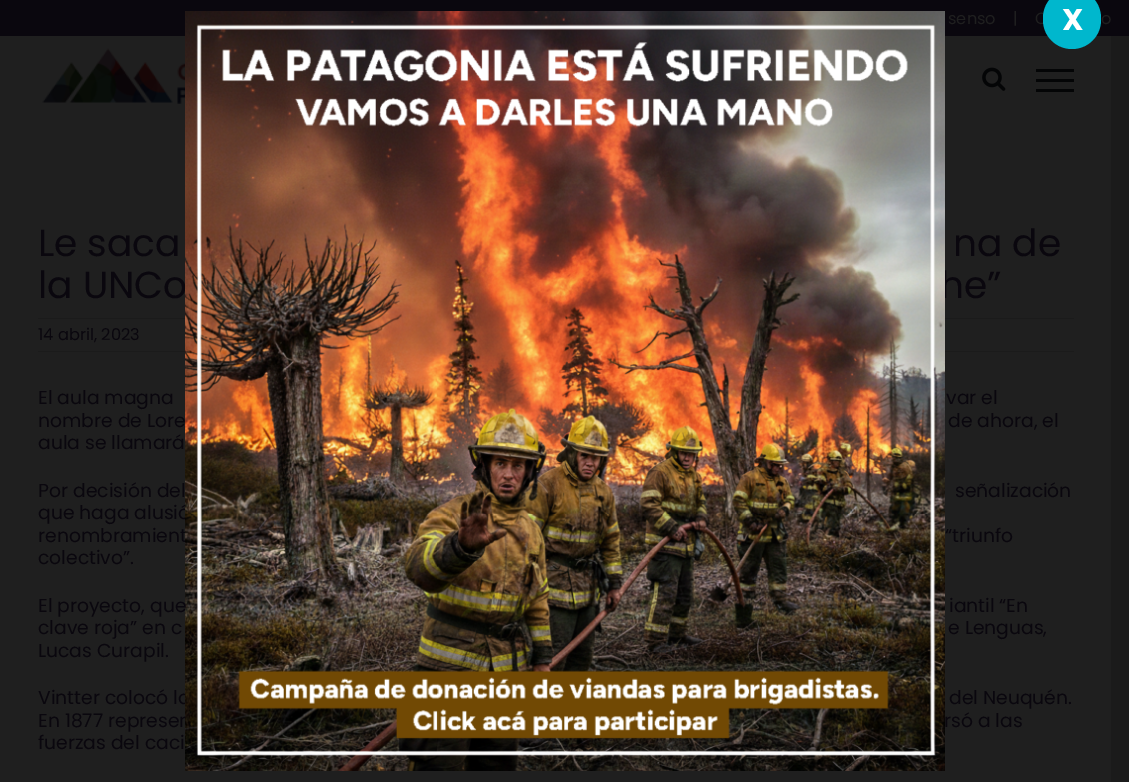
%!PS
<< /PageSize [1129 782] >> setpagedevice
/f/fill load def
/C { dup -16 bitshift 255 div exch dup -8 bitshift 255 and 255 div exch 255 and 255 div setrgbcolor } def
/F { [ exch dup neg 0 0 3 -1 roll 0 0 ] selectfont } def
/T { moveto show } def
/R { rectfill } def
/Q { 5 dict begin { /r /h /w /y /x } { exch def } forall
  x r add y moveto x w add y 2 copy h add r arct x w add y h add x 1 index r arct
  x y h add x y r arct x y 2 copy exch w add exch r arct closepath end } def
/I { 5 dict begin { /h /w /y /x /name } { exch def } forall
  gsave x y translate w h scale
  w h 8 [w 0 0 h 0 0] name (r) file false 3 colorimage grestore end } def
0 782 translate 1 -1 scale
4 setmiterlimit
16#1B1B1B C
0 0 1129 782 R
16#0A070E C
0 0 1129 36 R
16#1F1F1F C
0 36 1111 746 R
/Poppins-Regular 37.5 F
16#0A070E C
(la UNCo) 38 298 T
(he”) 940 298 T
16#1B1B1B C
38 318 1036 1 R
38 351 1036 1 R
/Poppins-Regular 18.75 F
16#0A070E C
(que haga alusió) 38 519 T
(renombramient) 38 542 T
(Vintter colocó la) 38 704 T
(En 1877 represen) 38 727 T
(1.rgb) 185 11 760 760 I
/Poppins-Regular 16.25 F
16#1F1F1F C
(C) 1035 24 T
16#00B7CD C
1043 -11 58 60 29 Q f
/Poppins-Bold 30 F
16#FFFFFF C
(X) 1062 30 T
/Poppins-Regular 16.25 F
16#1F1F1F C
(senso) 948 24 T
(|) 1013 24 T
(o) 1101 24 T
(2.rgb) 42 48 143 56 I
(3.rgb) 982 67 24 24 I
16#040506 C
1036 69 38 3 R
1036 79 38 3 R
1036 89 38 3 R
/Poppins-Regular 37.5 F
16#0A070E C
(Le saca) 38 256 T
(na de) 953 256 T
/Poppins-Regular 16.25 F
(14 abril, 2023) 38 340 T
/Poppins-Regular 18.75 F
(El aula magna) 38 404 T
(var el) 946 404 T
(nombre de Lore) 38 427 T
(de ahora, el) 948 427 T
(aula se llamará) 38 449 T
(Por decisión del) 38 497 T
(señalización) 955 497 T
(“triunfo) 945 542 T
(colectivo”.) 38 564 T
(El proyecto, que) 38 612 T
(iantil “En) 949 612 T
(clave roja” en c) 38 634 T
(e Lenguas,) 948 634 T
(Lucas Curapil.) 38 657 T
(del Neuquén.) 949 704 T
(rsó a las) 944 727 T
(fuerzas del caci) 38 749 T
showpage
